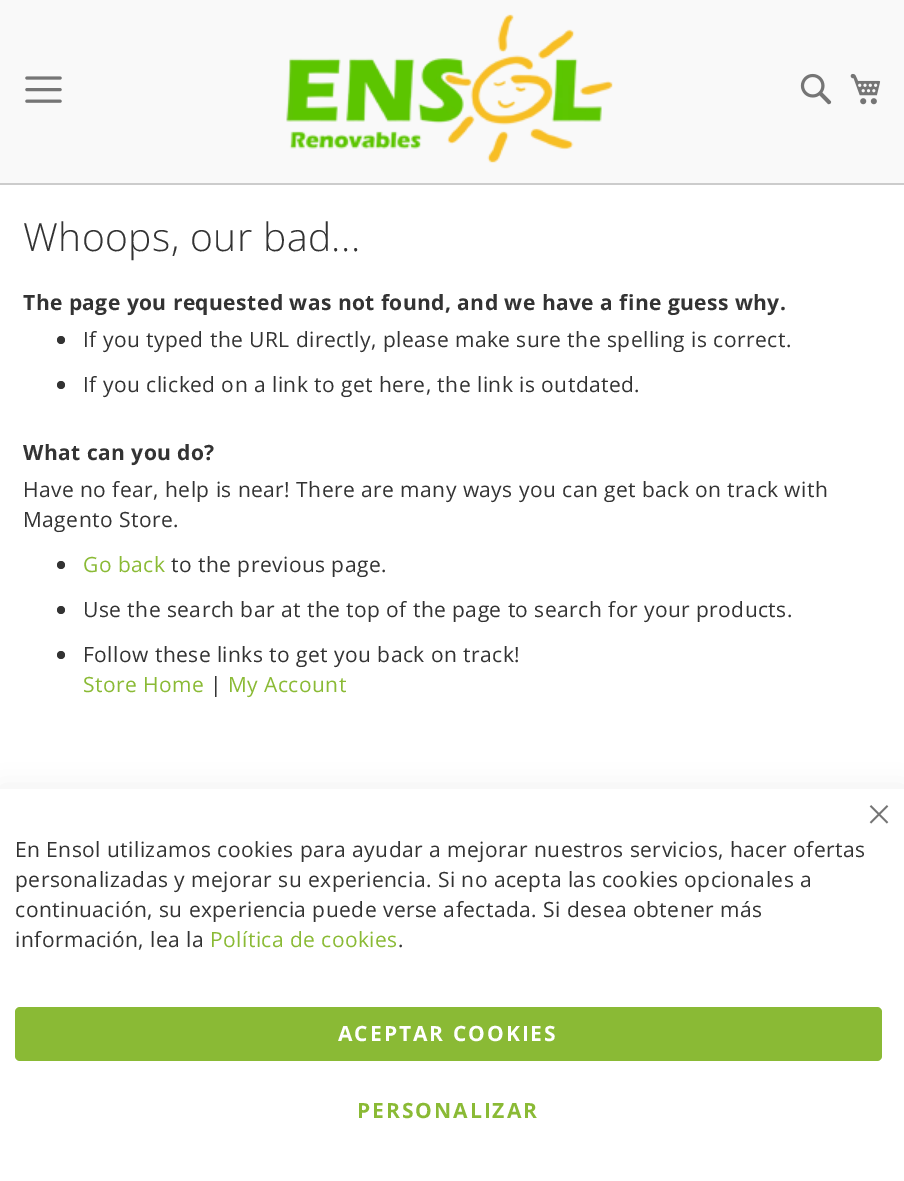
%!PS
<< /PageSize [904 1181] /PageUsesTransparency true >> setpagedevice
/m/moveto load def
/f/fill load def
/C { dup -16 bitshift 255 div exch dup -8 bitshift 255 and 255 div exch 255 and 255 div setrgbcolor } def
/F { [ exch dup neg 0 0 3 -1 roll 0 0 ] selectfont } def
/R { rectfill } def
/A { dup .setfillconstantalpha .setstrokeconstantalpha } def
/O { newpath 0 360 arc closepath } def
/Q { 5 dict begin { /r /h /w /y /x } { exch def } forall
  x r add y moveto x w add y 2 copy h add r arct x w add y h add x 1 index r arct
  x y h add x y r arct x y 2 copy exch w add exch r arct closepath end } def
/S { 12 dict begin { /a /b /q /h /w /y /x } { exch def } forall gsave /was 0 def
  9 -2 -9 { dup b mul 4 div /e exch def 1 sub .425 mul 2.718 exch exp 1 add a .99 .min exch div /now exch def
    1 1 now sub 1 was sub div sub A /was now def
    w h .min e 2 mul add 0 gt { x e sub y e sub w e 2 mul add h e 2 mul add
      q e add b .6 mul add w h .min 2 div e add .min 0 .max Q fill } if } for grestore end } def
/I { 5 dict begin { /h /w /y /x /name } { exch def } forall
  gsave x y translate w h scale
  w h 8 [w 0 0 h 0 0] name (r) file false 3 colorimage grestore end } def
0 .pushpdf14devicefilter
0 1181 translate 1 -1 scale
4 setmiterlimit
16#FFFFFF C
0 0 904 1181 R
16#CCCCCC C
0 183 904 2 R
16#F9F9F9 C
0 0 904 183 R
(1.rgb) 25 76 37 27 I
(2.rgb) 286 14 327 149 I
(3.rgb) 800 73 32 32 I
(4.rgb) 850 73 31 32 I
/OpenSans-Light 39 F
16#333333 C
23 251 m .45 0 (Whoops, our bad...) ashow
/OpenSans-Bold 21 F
23 310 m .45 0 (The page you requested was not found, and we have a fine guess why.) ashow
61 340 4 O f
/OpenSans-Regular 21 F
83 347 m .45 0 (If you typed the URL directly, please make sure the spelling is correct.) ashow
61 385 4 O f
83 392 m .45 0 (If you clicked on a link to get here, the link is outdated.) ashow
/OpenSans-Bold 21 F
23 460 m .45 0 (What can you do?) ashow
/OpenSans-Regular 21 F
23 497 m .45 0 (Have no fear, help is near! There are many ways you can get back on track with) ashow
23 527 m .45 0 (Magento Store.) ashow
61 565 4 O f
16#8ABA35 C
83 572 m .45 0 (Go back) ashow
16#333333 C
171 572 m .45 0 (to the previous page.) ashow
61 610 4 O f
83 617 m .45 0 (Use the search bar at the top of the page to search for your products.) ashow
61 655 4 O f
83 662 m .45 0 (Follow these links to get you back on track!) ashow
16#8ABA35 C
83 692 m .45 0 (Store Home) ashow
16#333333 C
210 692 m .45 0 (|) ashow
16#8ABA35 C
228 692 m .45 0 (My Account) ashow
16#000000 C
0 786 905 393 0 13.5 .06 S
16#FFFFFF C
0 789 904 392 R
(5.rgb) 869 805 20 19 I
16#333333 C
15 857 m .45 0 (En Ensol utilizamos cookies para ayudar a mejorar nuestros servicios, hacer ofertas) ashow
15 887 m .45 0 (personalizadas y mejorar su experiencia. Si no acepta las cookies opcionales a) ashow
15 917 m .45 0 (continuación, su experiencia puede verse afectada. Si desea obtener más) ashow
15 947 m .45 0 (información, lea la) ashow
16#8ABA35 C
210 947 m .45 0 (Política de cookies) ashow
16#333333 C
398 947 m .45 0 (.) ashow
16#8ABA35 C
15 1007 867 54 5 Q f
/OpenSans-Bold 21 F
16#FFFFFF C
338 1041 m 2 0 (ACEPTAR COOKIES) ashow
16#8ABA35 C
357 1118 m 2 0 (PERSONALIZAR) ashow
.poppdf14devicefilter showpage
